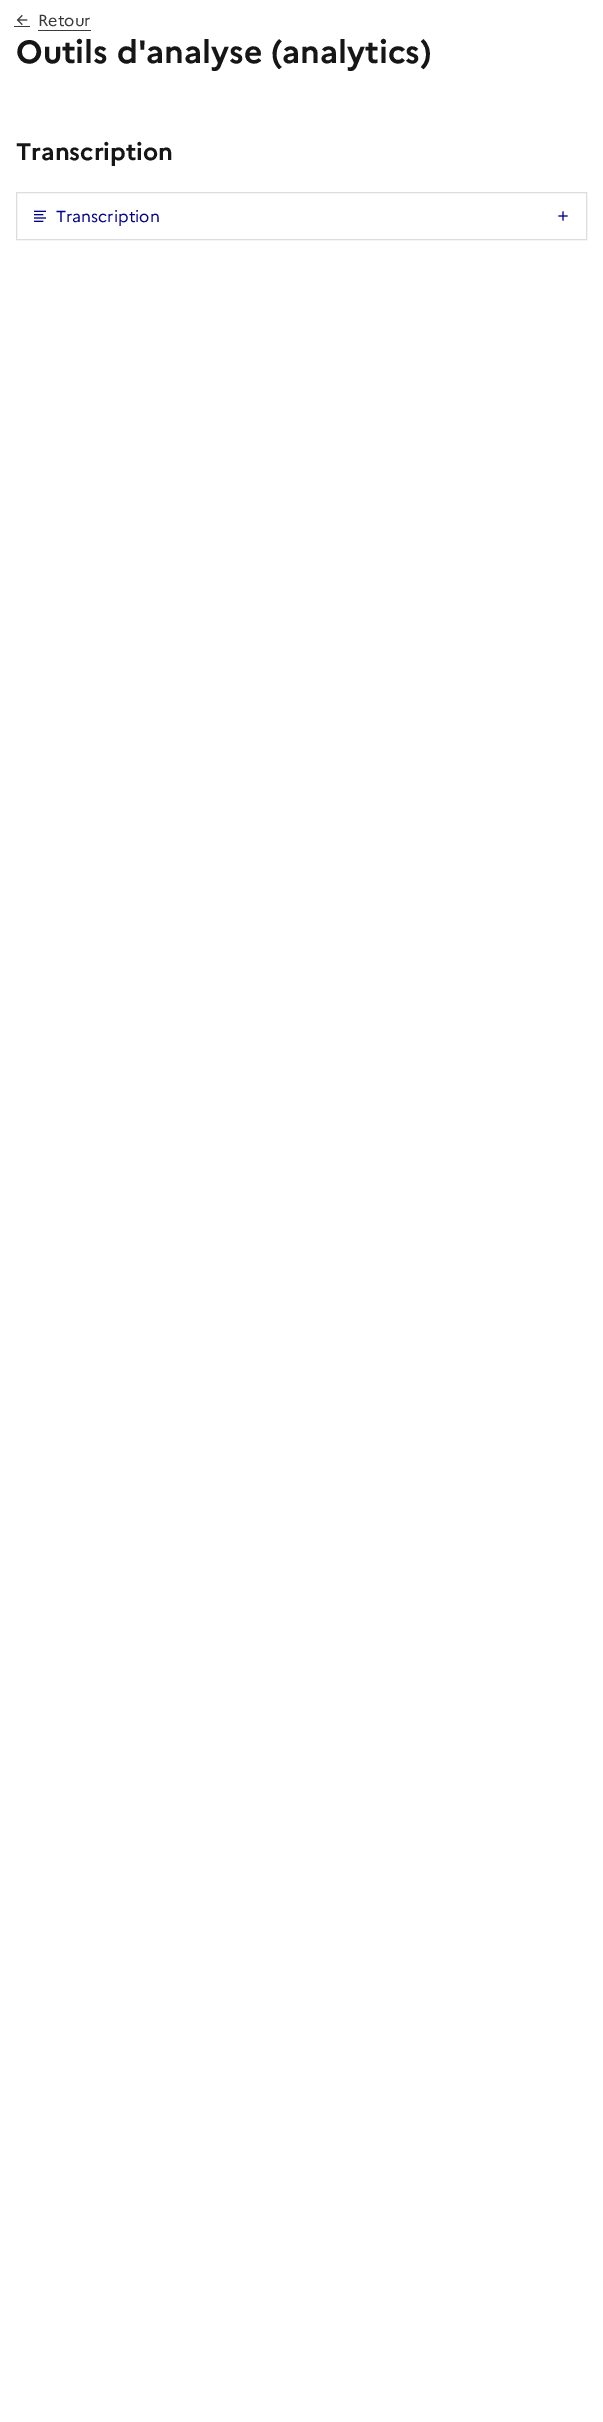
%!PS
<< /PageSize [603 2422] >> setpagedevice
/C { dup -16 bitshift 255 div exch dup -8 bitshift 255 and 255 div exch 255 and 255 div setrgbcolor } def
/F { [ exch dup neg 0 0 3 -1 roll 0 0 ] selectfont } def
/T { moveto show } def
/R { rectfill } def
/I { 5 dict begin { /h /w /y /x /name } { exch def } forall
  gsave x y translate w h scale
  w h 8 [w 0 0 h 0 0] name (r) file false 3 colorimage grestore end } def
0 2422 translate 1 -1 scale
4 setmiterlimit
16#FFFFFF C
0 0 603 2422 R
16#3A3A3A C
14 26 16 1 R
38 30 53 1 R
(1.rgb) 16 14 12 12 I
/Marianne-Regular 16 F
(Retour) 38 26 T
/Marianne-Bold 32 F
16#161616 C
(Outils d'analyse \(analytics\)) 16 63 T
/Marianne-Bold 24 F
(Transcription) 16 160 T
16#DDDDDD C
16.5 192.5 570 47 rectstroke
(2.rgb) 34 210 12 12 I
/Marianne-Regular 16 F
16#000091 C
(Transcription) 56 222 T
(3.rgb) 558 211 10 10 I
showpage
